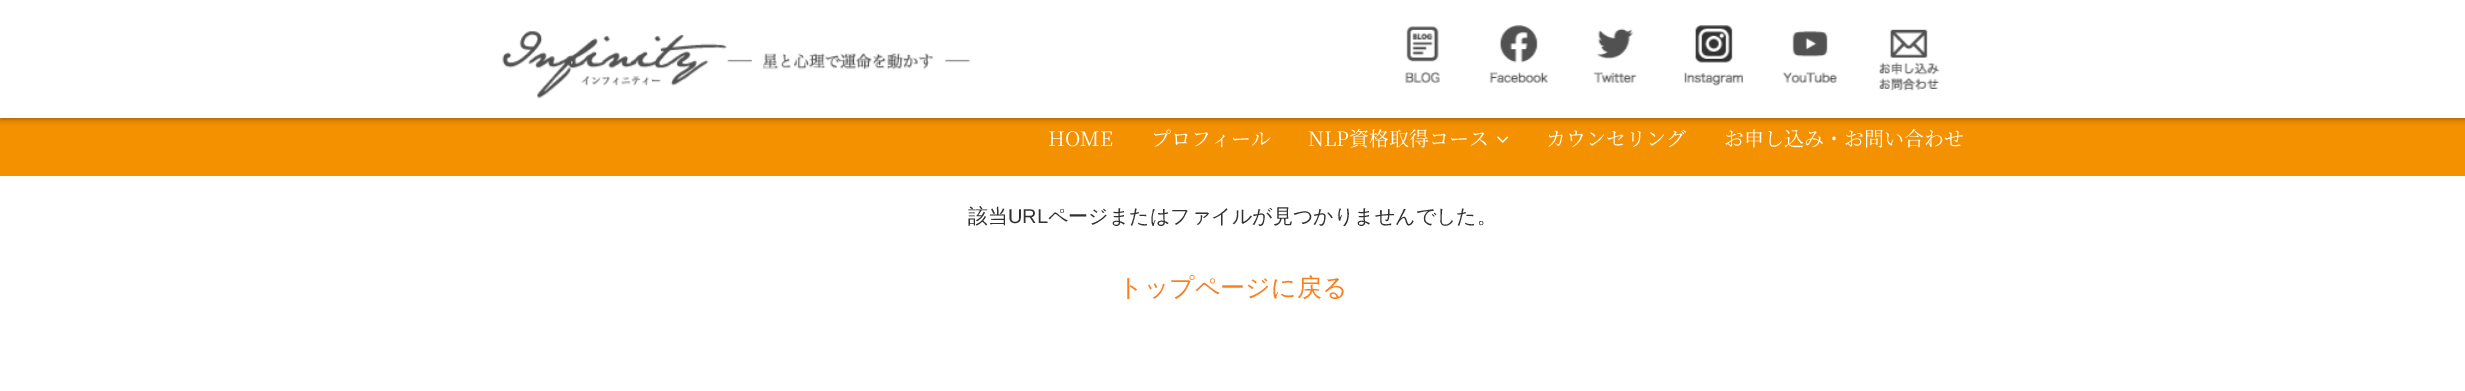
%!PS
<< /PageSize [2465 391] /PageUsesTransparency true >> setpagedevice
/C { dup -16 bitshift 255 div exch dup -8 bitshift 255 and 255 div exch 255 and 255 div setrgbcolor } def
/F { [ exch dup neg 0 0 3 -1 roll 0 0 ] selectfont } def
/T { moveto show } def
/R { rectfill } def
/A { dup .setfillconstantalpha .setstrokeconstantalpha } def
/Q { 5 dict begin { /r /h /w /y /x } { exch def } forall
  x r add y moveto x w add y 2 copy h add r arct x w add y h add x 1 index r arct
  x y h add x y r arct x y 2 copy exch w add exch r arct closepath end } def
/S { 12 dict begin { /a /b /q /h /w /y /x } { exch def } forall gsave /was 0 def
  9 -2 -9 { dup b mul 4 div /e exch def 1 sub .425 mul 2.718 exch exp 1 add a .99 .min exch div /now exch def
    1 1 now sub 1 was sub div sub A /was now def
    w h .min e 2 mul add 0 gt { x e sub y e sub w e 2 mul add h e 2 mul add
      q e add b .6 mul add w h .min 2 div e add .min 0 .max Q fill } if } for grestore end } def
/I { 5 dict begin { /h /w /y /x /name } { exch def } forall
  gsave x y translate w h scale
  w h 8 [w 0 0 h 0 0] name (r) file false 3 colorimage grestore end } def
0 .pushpdf14devicefilter
0 391 translate 1 -1 scale
4 setmiterlimit
16#FFFFFF C
0 0 2465 391 R
16#F39100 C
0 118 2465 58 R
16#000000 C
1 1 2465 118 0 3 .4 S
16#FFFFFF C
0 0 2465 118 R
(1.rgb) 502 31 469 68 I
(2.rgb) 1404 26 36 57 I
(3.rgb) 1489 25 59 58 I
(4.rgb) 1593 28 44 55 I
(5.rgb) 1684 25 60 61 I
(6.rgb) 1782 30 55 53 I
(7.rgb) 1879 29 61 62 I
/NotoSerifJP-Regular 20 F
(HOME) 1048 146 T
(プロフィール) 1151 146 T
(NLP資格取得コース) 1308 146 T
(8.rgb) 1497 136 12 7 I
(カウンセリング) 1546 146 T
(お申し込み・お問い合わせ) 1724 146 T
/WenQuanYiZenHei-Medium 20 F
16#313131 C
(該当) 968 223 T
/LiberationSans-Regular 20 F
(URL) 1008 223 T
/WenQuanYiZenHei-Medium 20 F
(ページまたはファイルが見つかりませんでした。) 1048 223 T
/WenQuanYiZenHei-Medium 25 F
16#F88021 C
(トップページに戻る) 1118 296 T
.poppdf14devicefilter showpage
